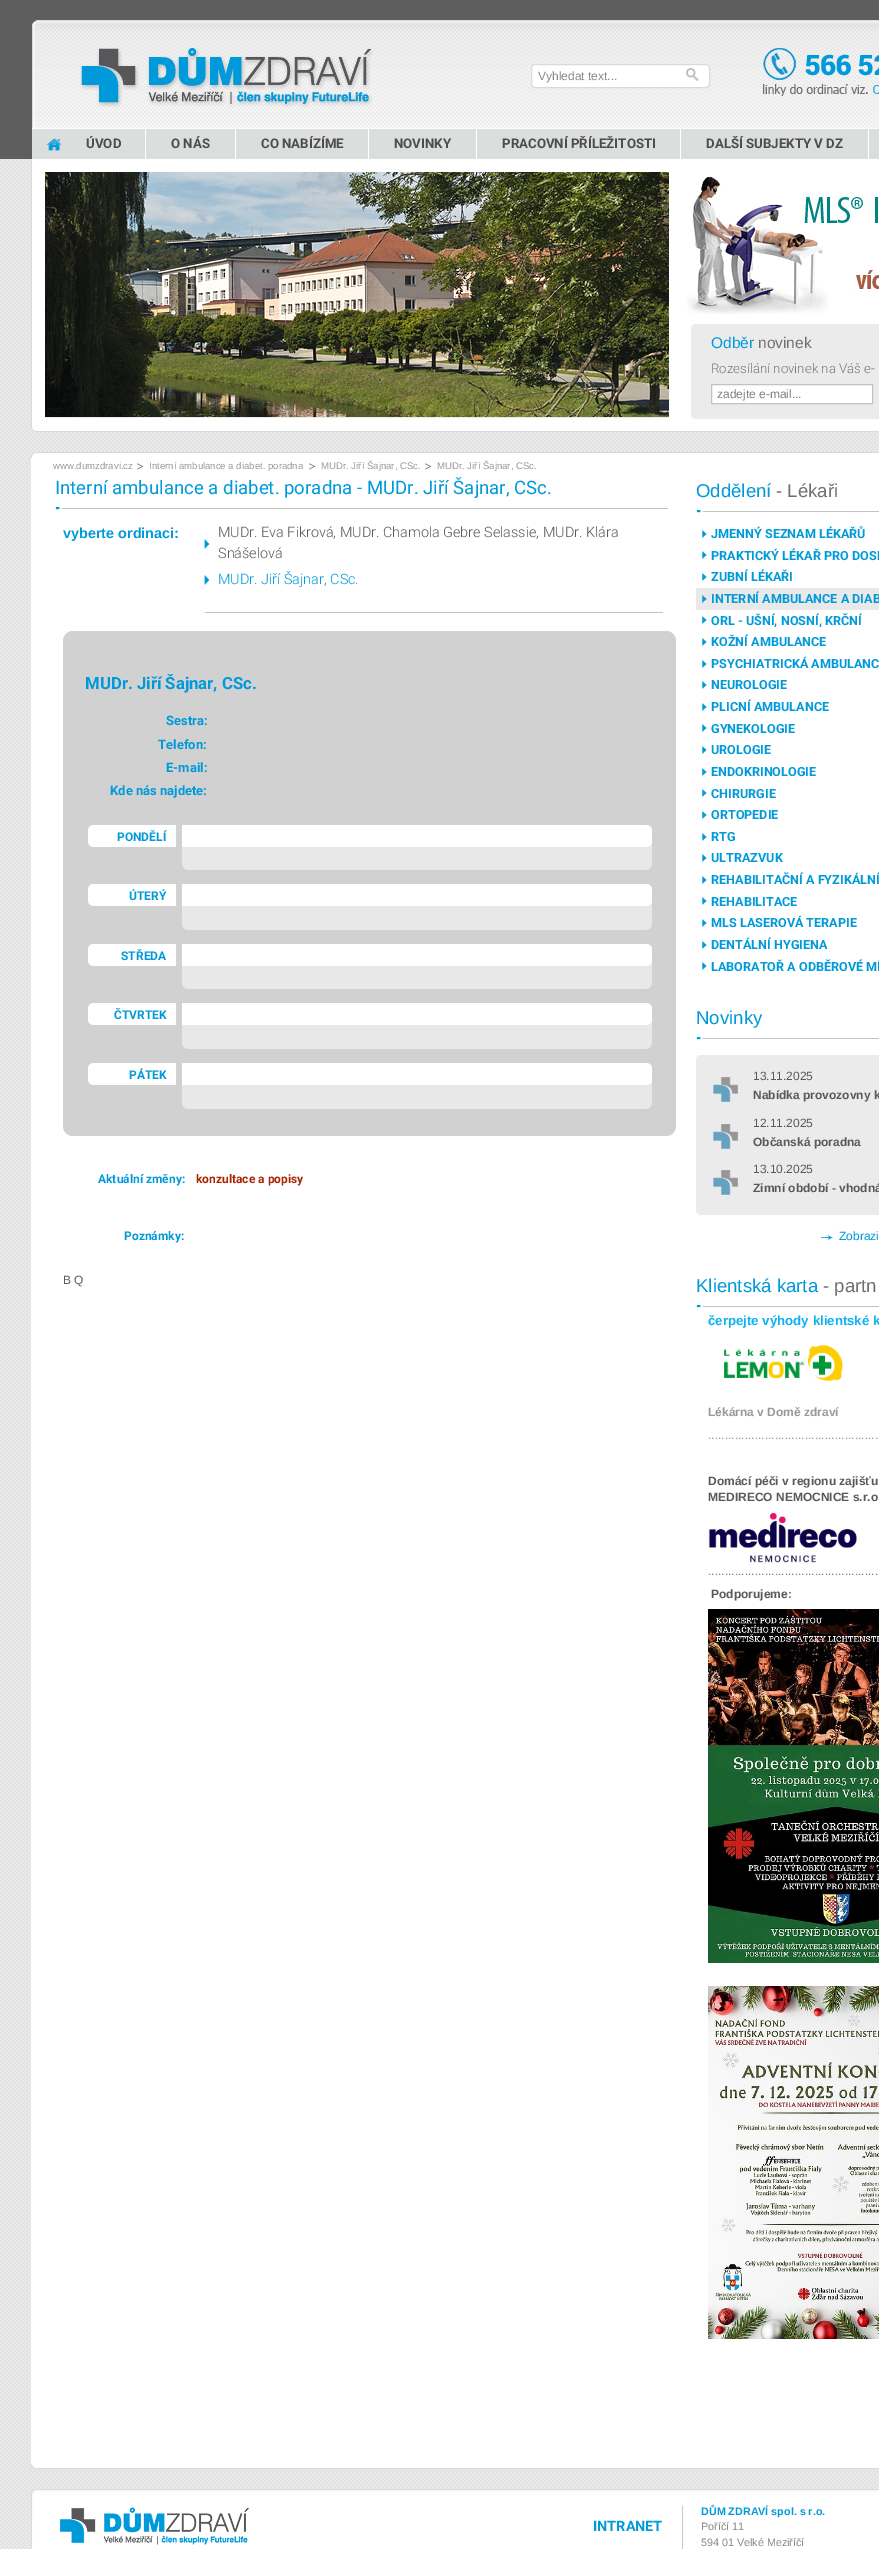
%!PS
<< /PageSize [879 2549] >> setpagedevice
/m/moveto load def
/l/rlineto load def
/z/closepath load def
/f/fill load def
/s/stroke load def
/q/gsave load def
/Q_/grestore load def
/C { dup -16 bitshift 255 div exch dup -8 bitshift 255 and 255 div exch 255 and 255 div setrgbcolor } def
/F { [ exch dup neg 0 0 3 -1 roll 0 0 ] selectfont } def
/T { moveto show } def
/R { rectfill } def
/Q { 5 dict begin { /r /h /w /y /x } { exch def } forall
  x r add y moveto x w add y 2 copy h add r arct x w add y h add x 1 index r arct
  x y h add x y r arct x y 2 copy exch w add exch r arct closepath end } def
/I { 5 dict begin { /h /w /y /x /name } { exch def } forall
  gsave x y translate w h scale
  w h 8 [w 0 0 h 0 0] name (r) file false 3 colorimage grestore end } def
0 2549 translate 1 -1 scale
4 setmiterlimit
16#FFFFFF C
0 0 879 2549 R
(1.rgb) 0 159 879 2390 I
31 458 848 2006 R
(2.rgb) 31 2464 848 5 I
(3.rgb) 31 452 848 6 I
16#5E5E5E C
0 0 879 159 R
(25.rgb) 32 20 847 139 I
16#FFFFFF C
531.5 64.5 178 23 3.5 Q q f Q_
16#DADADA C
s
/LiberationSans-Regular 12 F
16#878888 C
(Vyhledat text...) 538 80 T
(4.rgb) 686 68 13 13 I
(5.rgb) 763 48 116 48 I
/LiberationSans-Regular 9.6 F
16#999999 C
(www.dumzdravi.cz) 53 469 T
(6.rgb) 137 463 6 7 I
(Interní ambulance a diabet. poradna) 149 469 T
(6.rgb) 309 463 6 7 I
(MUDr. Jiří Šajnar, CSc.) 321 469 T
(6.rgb) 425 463 6 7 I
(MUDr. Jiří Šajnar, CSc.) 437 469 T
(7.rgb) 55 507 613 3 I
/Roboto-Regular 18.6 F
16#009ADA C
(Interní ambulance a diabet. poradna - MUDr. Jiří Šajnar, CSc.) 55 494 T
/LiberationSans-Bold 14.4 F
(vyberte ordinaci:) 63 538 T
16#C2C2C2 C
205 612 458 1 R
(8.rgb) 204 539 6 10 I
/Roboto-Light 14.4 F
16#595959 C
(MUDr. Eva Fikrová, MUDr. Chamola Gebre Selassie, MUDr. Klára) 218 537 T
(Snášelová) 218 558 T
(8.rgb) 204 575 6 10 I
16#009ADA C
(MUDr. Jiří Šajnar, CSc.) 218 584 T
16#D1D1D1 C
63 631 613 505 10 Q f
/Roboto-Bold 16.75 F
16#009ADA C
(MUDr. Jiří Šajnar, CSc.) 85 689 T
/Roboto-Bold 13 F
(Sestra:) 166 725 T
(Telefon:) 158 749 T
(E-mail:) 166 772 T
(Kde nás najdete:) 110 795 T
(9.rgb) 88 825 88 22 I
/Roboto-Bold 12 F
(PONDĚLÍ) 117 841 T
(10.rgb) 182 825 470 45 I
(9.rgb) 88 884 88 22 I
(ÚTERÝ) 129 900 T
(11.rgb) 182 884 470 46 I
(9.rgb) 88 944 88 22 I
(STŘEDA) 121 960 T
(10.rgb) 182 944 470 45 I
(9.rgb) 88 1003 88 22 I
(ČTVRTEK) 114 1019 T
(11.rgb) 182 1003 470 46 I
(9.rgb) 88 1063 88 22 I
(PÁTEK) 129 1079 T
(11.rgb) 182 1063 470 46 I
(Aktuální změny:) 98 1183 T
16#A92400 C
(konzultace a popisy) 196 1183 T
16#009ADA C
(Poznámky:) 124 1240 T
/LiberationSans-Regular 12 F
16#595959 C
(B Q) 63 1284 T
(12.rgb) 696 510 183 3 I
/LiberationSans-Regular 18.6 F
16#009ADA C
(Oddělení) 696 497 T
16#707070 C
(- Lékaři) 776 497 T
(13.rgb) 702 530 5 8 I
/Roboto-Bold 12.6 F
16#009ADA C
(JMENNÝ SEZNAM LÉKAŘŮ) 711 538 T
(13.rgb) 702 551 5 8 I
(PRAKTICKÝ LÉKAŘ PRO DOSP) 711 560 T
(13.rgb) 702 573 5 8 I
(ZUBNÍ LÉKAŘI) 711 581 T
16#E9E9E9 C
696 588 183 22 R
(14.rgb) 702 595 5 8 I
16#009ADA C
(INTERNÍ AMBULANCE A DIAB) 711 603 T
(13.rgb) 702 616 5 8 I
(ORL - UŠNÍ, NOSNÍ, KRČNÍ) 711 625 T
(13.rgb) 702 638 5 8 I
(KOŽNÍ AMBULANCE) 711 646 T
(13.rgb) 702 660 5 8 I
(PSYCHIATRICKÁ AMBULANC) 711 668 T
(13.rgb) 702 681 5 8 I
(NEUROLOGIE) 711 689 T
(13.rgb) 702 703 5 8 I
(PLICNÍ AMBULANCE) 711 711 T
(13.rgb) 702 724 5 8 I
(GYNEKOLOGIE) 711 733 T
(13.rgb) 702 746 5 8 I
(UROLOGIE) 711 754 T
(13.rgb) 702 768 5 8 I
(ENDOKRINOLOGIE) 711 776 T
(13.rgb) 702 789 5 8 I
(CHIRURGIE) 711 798 T
(13.rgb) 702 811 5 8 I
(ORTOPEDIE) 711 819 T
(13.rgb) 702 833 5 8 I
(RTG) 711 841 T
(13.rgb) 702 854 5 8 I
(ULTRAZVUK) 711 862 T
(13.rgb) 702 876 5 8 I
(REHABILITAČNÍ A FYZIKÁLNÍ) 711 884 T
(13.rgb) 702 897 5 8 I
(REHABILITACE) 711 906 T
(13.rgb) 702 919 5 8 I
(MLS LASEROVÁ TERAPIE) 711 927 T
(13.rgb) 702 941 5 8 I
(DENTÁLNÍ HYGIENA) 711 949 T
(13.rgb) 702 962 5 8 I
(LABORATOŘ A ODBĚROVÉ MÍ) 711 971 T
(12.rgb) 696 1037 183 3 I
/LiberationSans-Regular 18.6 F
(Novinky) 696 1024 T
16#EBEBEB C
696 1055 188 160 5 Q f
(15.rgb) 713 1077 25 25 I
/LiberationSans-Regular 12 F
16#595959 C
(13.11.2025) 753 1080 T
/LiberationSans-Bold 12 F
(Nabídka provozovny k) 753 1099 T
(15.rgb) 713 1124 25 25 I
/LiberationSans-Regular 12 F
(12.11.2025) 753 1127 T
/LiberationSans-Bold 12 F
(Občanská poradna) 753 1146 T
(15.rgb) 713 1170 25 25 I
/LiberationSans-Regular 12 F
(13.10.2025) 753 1173 T
/LiberationSans-Bold 12 F
(Zimní období - vhodná) 753 1192 T
(16.rgb) 821 1235 12 5 I
/LiberationSans-Regular 12 F
16#009ADA C
(Zobrazi) 839 1240 T
(12.rgb) 696 1305 183 3 I
/LiberationSans-Regular 18.6 F
(Klientská karta) 696 1292 T
16#707070 C
(- partn) 823 1292 T
/LiberationSans-Bold 13.25 F
16#0CB2F2 C
(čerpejte výhody klientské k) 708 1325 T
(17.rgb) 724 1344 119 38 I
/LiberationSans-Bold 12 F
16#999999 C
(Lékárna v Domě zdraví) 708 1416 T
/LiberationSans-Regular 12 F
(...................................................) 708 1439 T
/LiberationSans-Bold 12 F
16#595959 C
(Domácí péči v regionu zajišťu) 708 1485 T
(MEDIRECO NEMOCNICE s.r.o) 708 1501 T
(18.rgb) 708 1512 149 51 I
/LiberationSans-Regular 12 F
16#808080 C
(...................................................) 708 1575 T
/LiberationSans-Bold 12 F
16#595959 C
(Podporujeme:) 711 1598 T
(19.rgb) 708 1609 171 354 I
(20.rgb) 708 1986 171 353 I
(21.rgb) 31 159 848 273 I
(22.rgb) 45 172 624 245 I
16#FFFFFF C
686 204 193 58 R
(23.rgb) 687 176 192 138 I
16#EBEBEB C
691 324 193 95 5 Q f
/LiberationSans-Regular 15.5 F
16#009ADA C
(Odběr) 711 348 T
16#707070 C
(novinek) 758 348 T
/Roboto-Light 13.25 F
16#787878 C
(Rozesílání novinek na Váš e-) 711 373 T
16#FFFFFF C
711.5 384.5 m 161 0 l 0 19 l -161 0 l z q f Q_
16#C2C2C2 C
s
/LiberationSans-Regular 12 F
16#808080 C
(zadejte e-mail...) 717 398 T
(24.rgb) 31 2489 848 60 I
/Roboto-Bold 14.4 F
16#009ADA C
(INTRANET) 593 2531 T
/LiberationSans-Bold 10.75 F
(DŮM ZDRAVÍ spol. s r.o.) 701 2515 T
/LiberationSans-Regular 10.75 F
16#878888 C
(Poříčí 11) 701 2530 T
(594 01 Velké Meziříčí) 701 2546 T
(26.rgb) 80 48 293 60 I
(27.rgb) 46 138 16 13 I
16#FFFFFF C
145 129 1 30 R
/Roboto-Bold 13.25 F
16#4D4D4D C
(ÚVOD) 86 148 T
16#FFFFFF C
235 129 1 30 R
16#4D4D4D C
(O NÁS) 171 148 T
16#FFFFFF C
368 129 1 30 R
16#4D4D4D C
(CO NABÍZÍME) 261 148 T
16#FFFFFF C
476 129 1 30 R
16#4D4D4D C
(NOVINKY) 394 148 T
16#FFFFFF C
680 129 1 30 R
16#4D4D4D C
(PRACOVNÍ PŘÍLEŽITOSTI) 502 148 T
16#FFFFFF C
868 129 1 30 R
16#4D4D4D C
(DALŠÍ SUBJEKTY V DZ) 706 148 T
showpage
